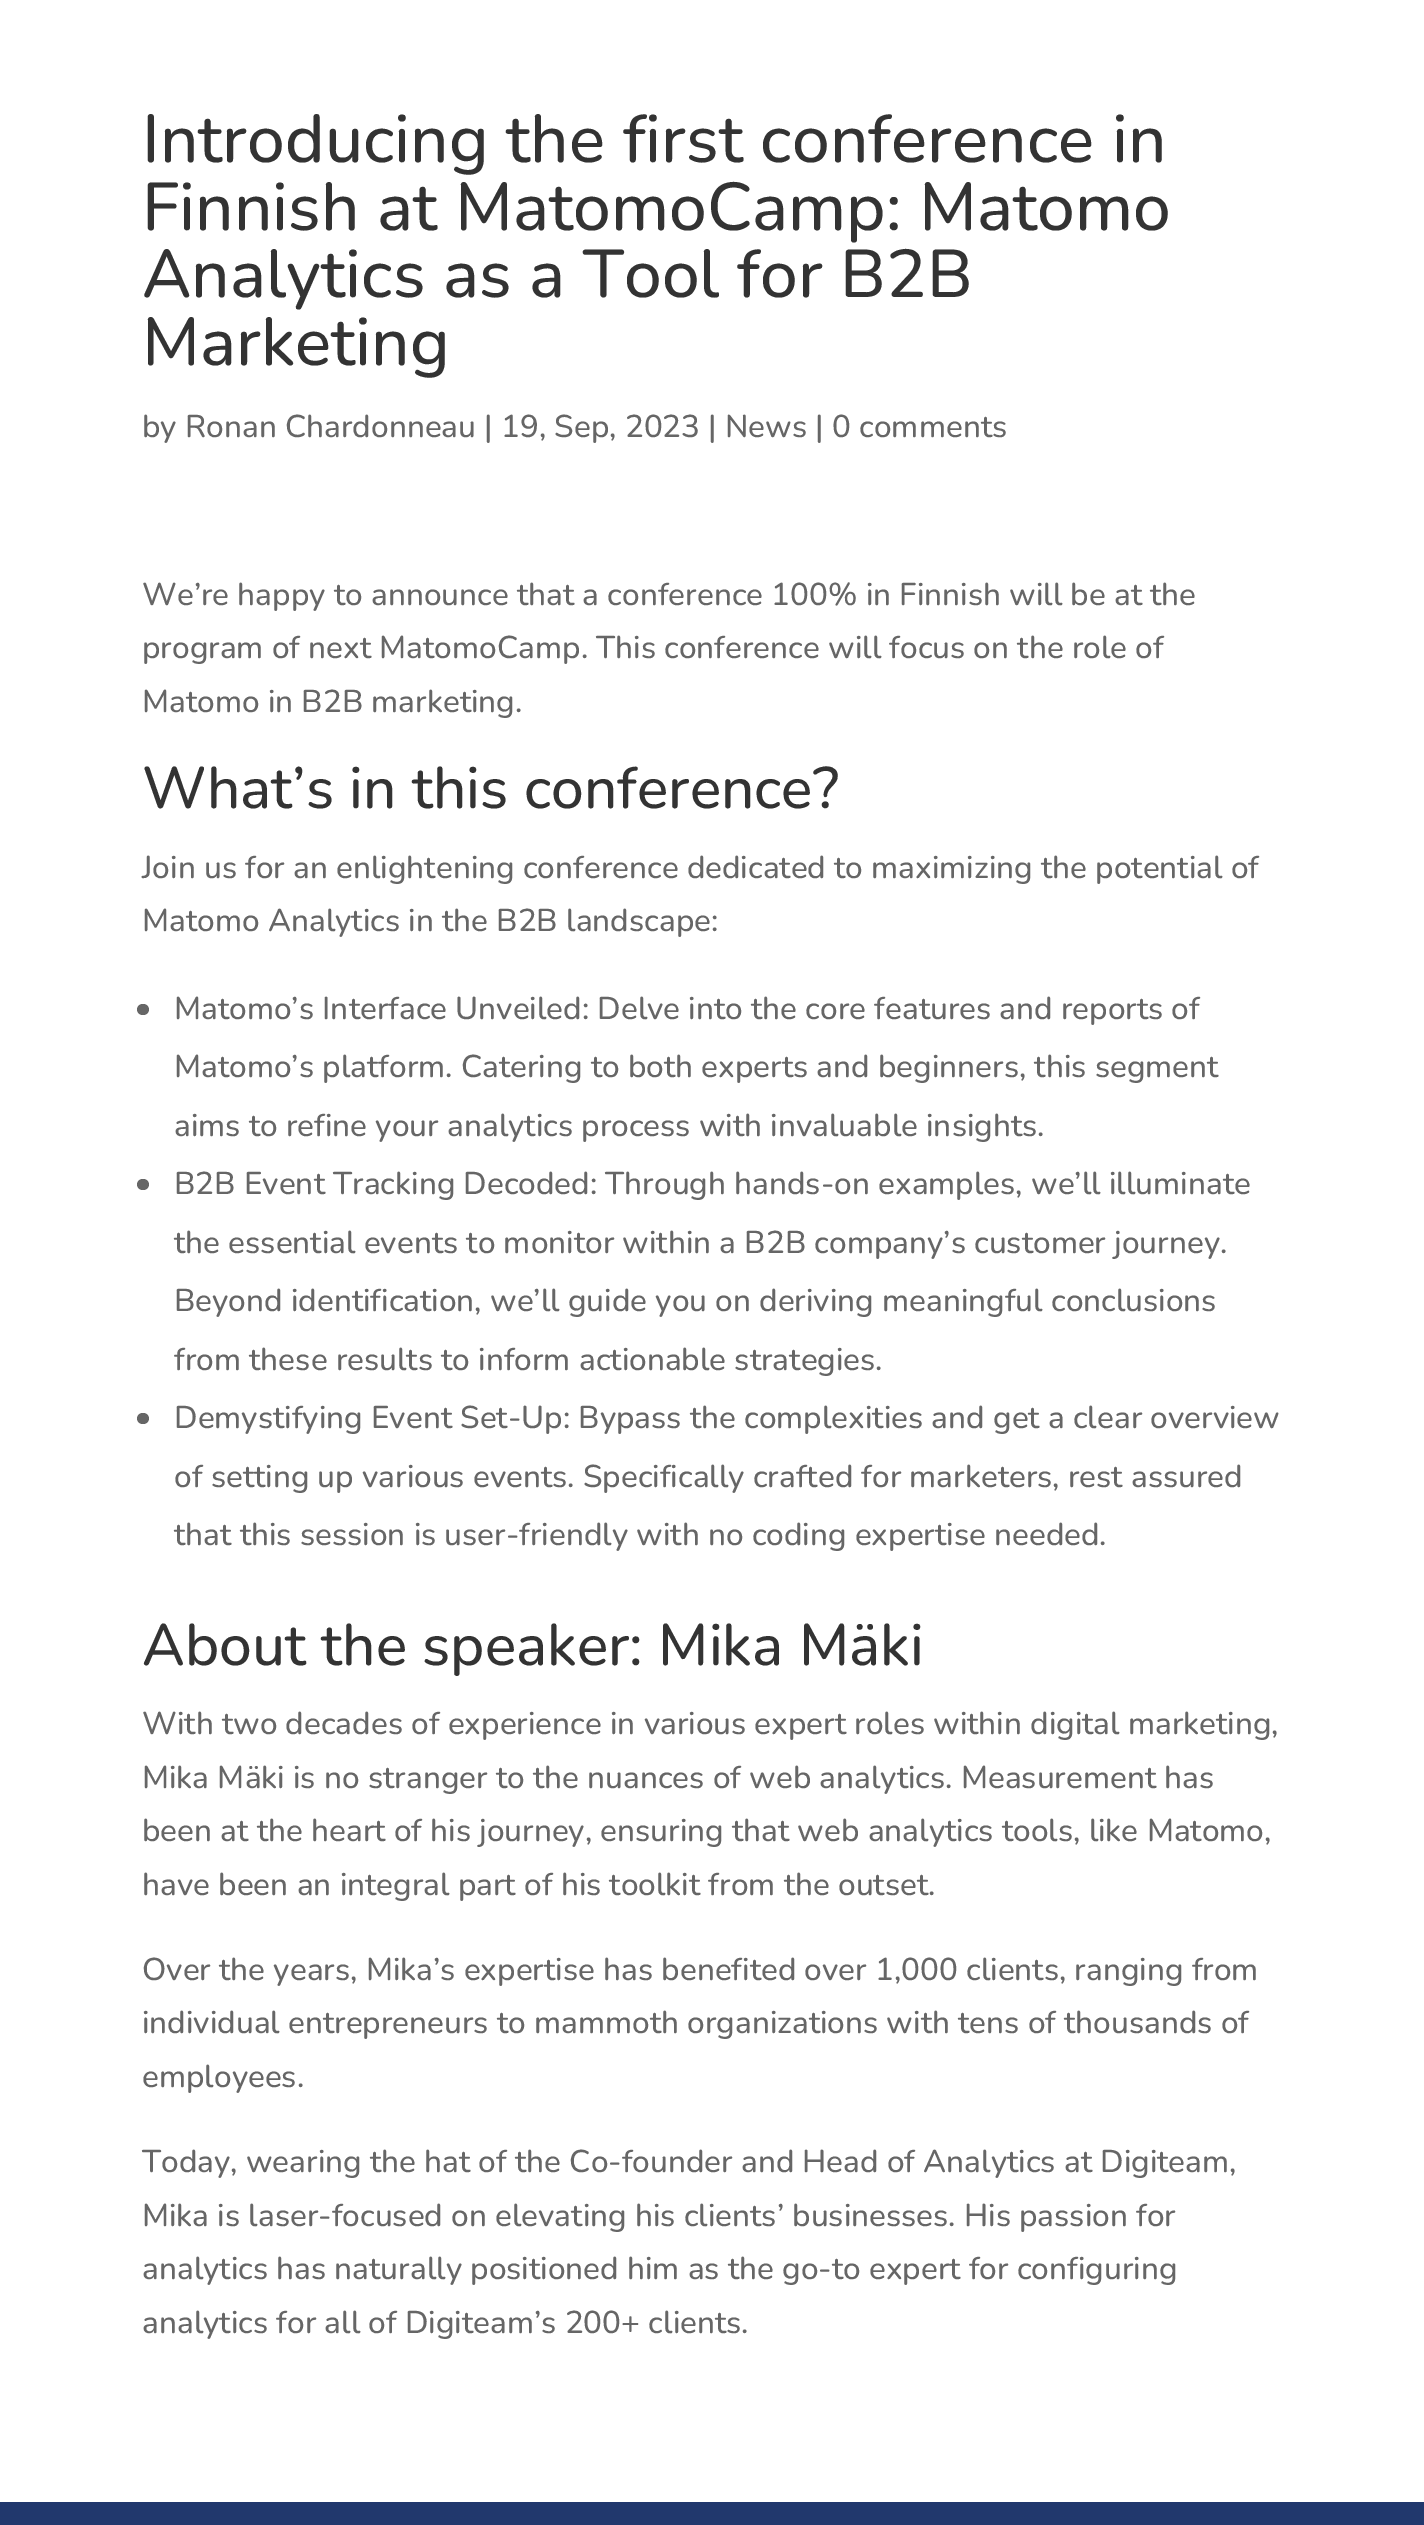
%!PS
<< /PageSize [1424 2525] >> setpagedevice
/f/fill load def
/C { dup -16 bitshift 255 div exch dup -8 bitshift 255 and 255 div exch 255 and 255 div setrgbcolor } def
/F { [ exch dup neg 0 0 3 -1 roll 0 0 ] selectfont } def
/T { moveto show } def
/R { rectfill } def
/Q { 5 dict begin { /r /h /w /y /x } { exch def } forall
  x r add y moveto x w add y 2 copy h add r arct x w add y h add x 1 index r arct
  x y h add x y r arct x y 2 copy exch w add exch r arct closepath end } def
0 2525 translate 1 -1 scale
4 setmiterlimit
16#FFFFFF C
0 0 1424 2525 R
/Nunito-Medium 67.5 F
16#333333 C
(Introducing the first conference in) 142 162 T
(Finnish at MatomoCamp: Matomo) 142 230 T
(Analytics as a Tool for B2B) 142 297 T
(Marketing) 142 365 T
/Nunito-Medium 31.5 F
16#666666 C
(by Ronan Chardonneau | 19, Sep, 2023 | News | 0 comments) 142 437 T
(We’re happy to announce that a conference 100% in Finnish will be at the) 142 605 T
(program of next MatomoCamp. This conference will focus on the role of) 142 658 T
(Matomo in B2B marketing.) 142 712 T
/Nunito-Medium 58.5 F
16#333333 C
(What’s in this conference?) 142 808 T
/Nunito-Medium 31.5 F
16#666666 C
(Join us for an enlightening conference dedicated to maximizing the potential of) 142 878 T
(Matomo Analytics in the B2B landscape:) 142 931 T
137 1004 12 11 5.5 Q f
(Matomo’s Interface Unveiled: Delve into the core features and reports of) 174 1019 T
(Matomo’s platform. Catering to both experts and beginners, this segment) 174 1077 T
(aims to refine your analytics process with invaluable insights.) 174 1136 T
137 1179 12 11 5.5 Q f
(B2B Event Tracking Decoded: Through hands-on examples, we’ll illuminate) 174 1194 T
(the essential events to monitor within a B2B company’s customer journey.) 174 1253 T
(Beyond identification, we’ll guide you on deriving meaningful conclusions) 174 1311 T
(from these results to inform actionable strategies.) 174 1370 T
137 1413 12 11 5.5 Q f
(Demystifying Event Set-Up: Bypass the complexities and get a clear overview) 174 1428 T
(of setting up various events. Specifically crafted for marketers, rest assured) 174 1487 T
(that this session is user-friendly with no coding expertise needed.) 174 1545 T
/Nunito-Medium 58.5 F
16#333333 C
(About the speaker: Mika Mäki) 142 1665 T
/Nunito-Medium 31.5 F
16#666666 C
(With two decades of experience in various expert roles within digital marketing,) 142 1734 T
(Mika Mäki is no stranger to the nuances of web analytics. Measurement has) 142 1788 T
(been at the heart of his journey, ensuring that web analytics tools, like Matomo,) 142 1841 T
(have been an integral part of his toolkit from the outset.) 142 1895 T
(Over the years, Mika’s expertise has benefited over 1,000 clients, ranging from) 142 1980 T
(individual entrepreneurs to mammoth organizations with tens of thousands of) 142 2033 T
(employees.) 142 2087 T
(Today, wearing the hat of the Co-founder and Head of Analytics at Digiteam,) 142 2172 T
(Mika is laser-focused on elevating his clients’ businesses. His passion for) 142 2226 T
(analytics has naturally positioned him as the go-to expert for configuring) 142 2279 T
(analytics for all of Digiteam’s 200+ clients.) 142 2333 T
16#21386D C
0 2502 1424 23 R
showpage
